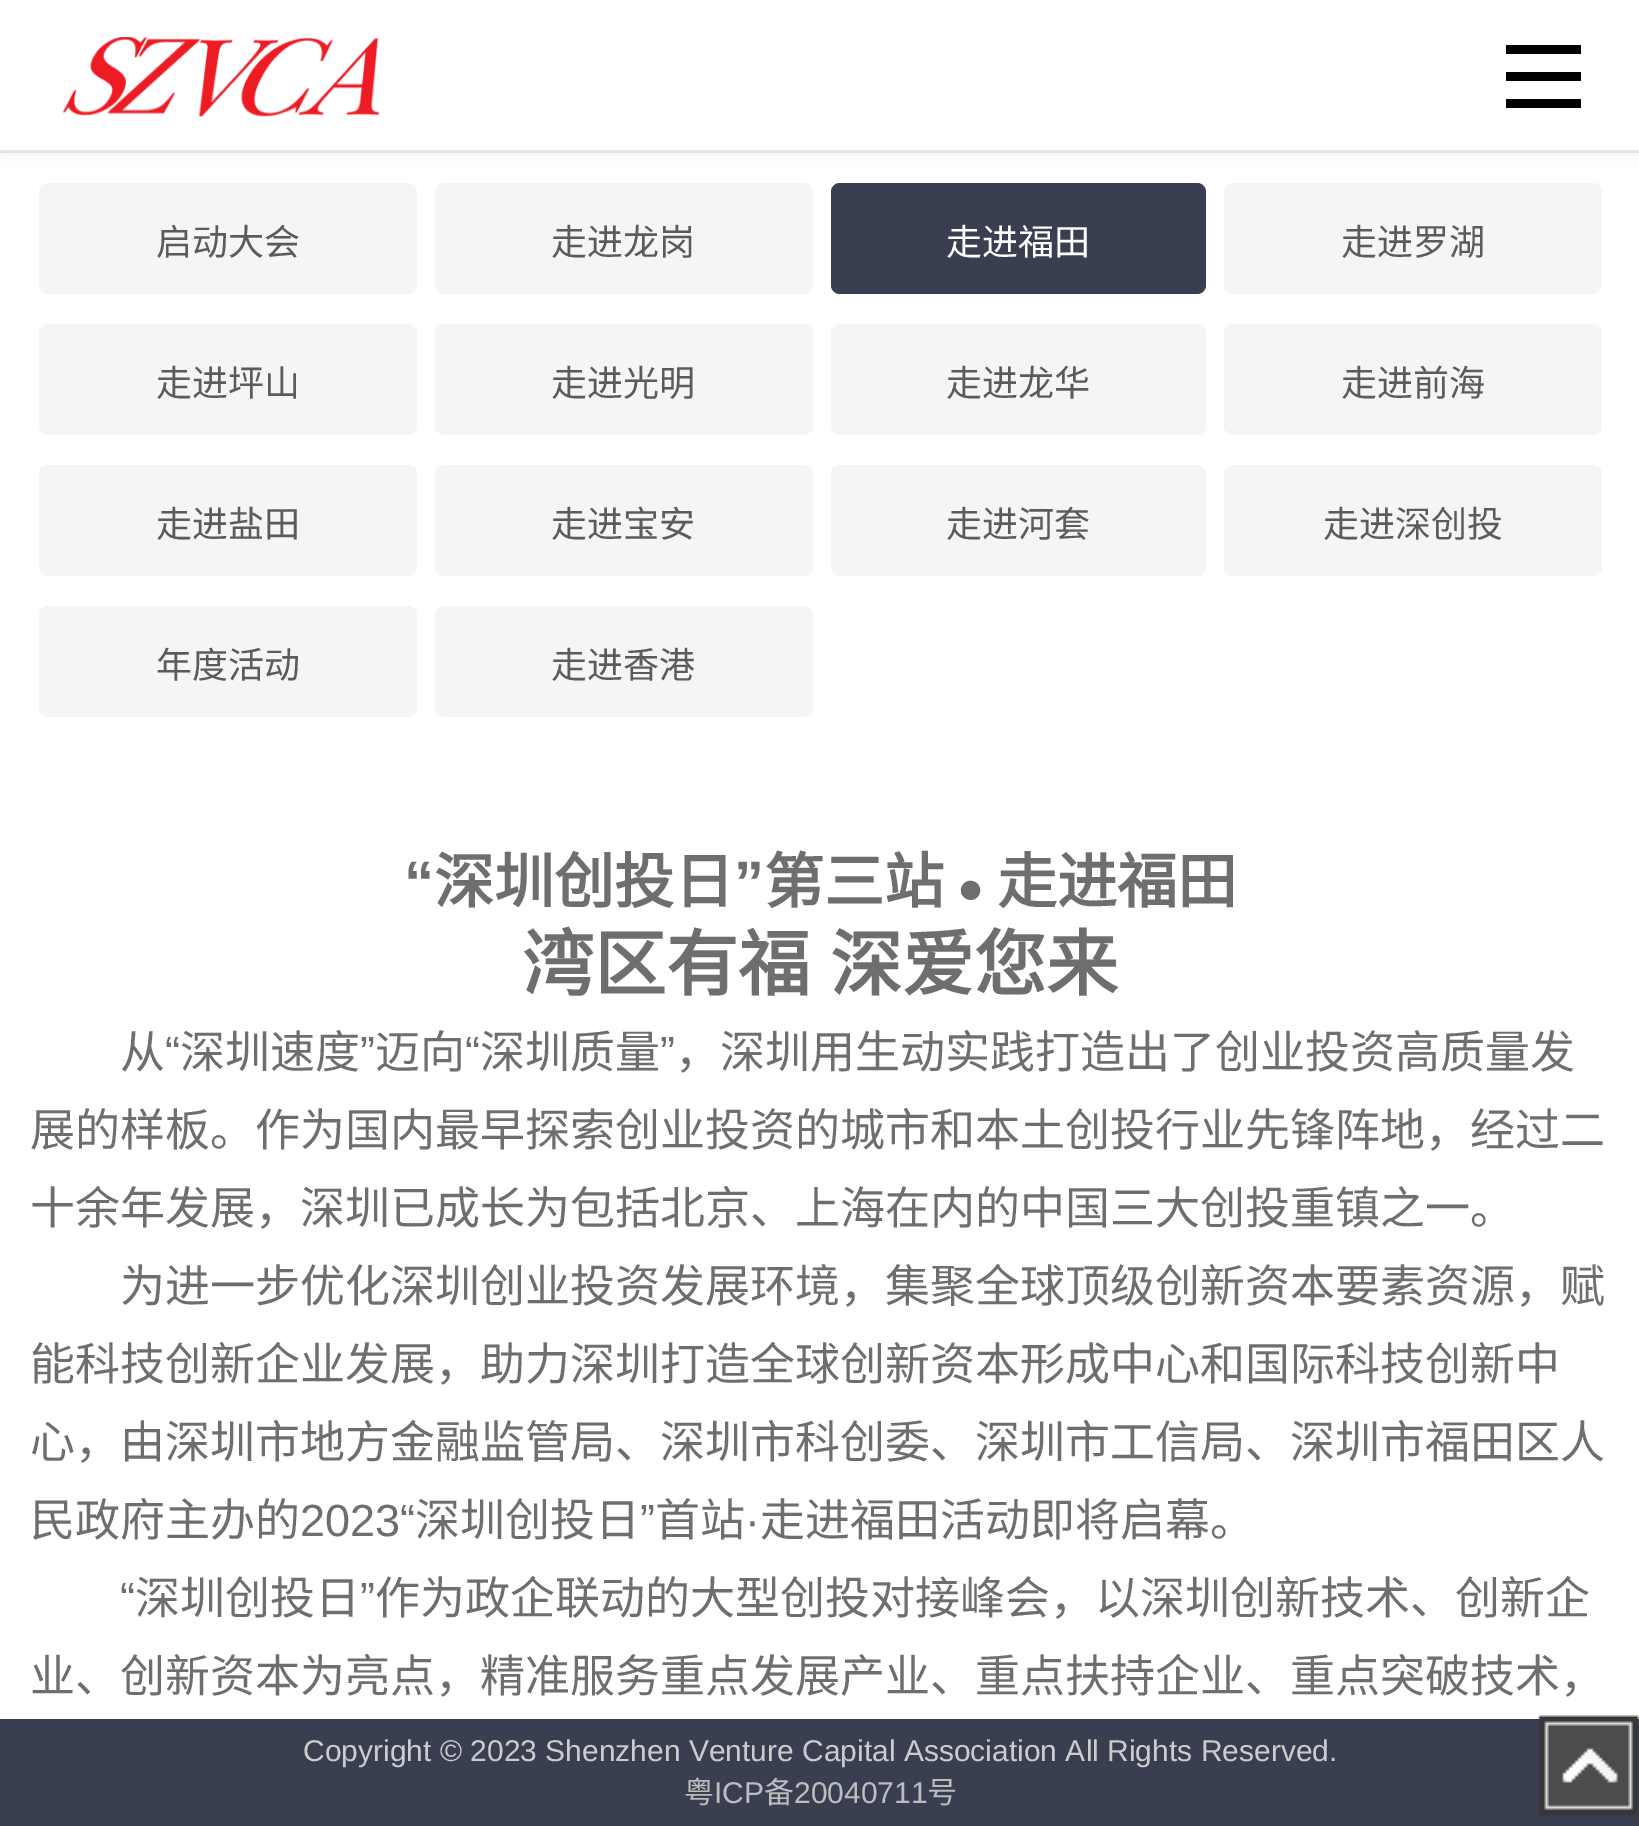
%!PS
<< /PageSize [1639 1826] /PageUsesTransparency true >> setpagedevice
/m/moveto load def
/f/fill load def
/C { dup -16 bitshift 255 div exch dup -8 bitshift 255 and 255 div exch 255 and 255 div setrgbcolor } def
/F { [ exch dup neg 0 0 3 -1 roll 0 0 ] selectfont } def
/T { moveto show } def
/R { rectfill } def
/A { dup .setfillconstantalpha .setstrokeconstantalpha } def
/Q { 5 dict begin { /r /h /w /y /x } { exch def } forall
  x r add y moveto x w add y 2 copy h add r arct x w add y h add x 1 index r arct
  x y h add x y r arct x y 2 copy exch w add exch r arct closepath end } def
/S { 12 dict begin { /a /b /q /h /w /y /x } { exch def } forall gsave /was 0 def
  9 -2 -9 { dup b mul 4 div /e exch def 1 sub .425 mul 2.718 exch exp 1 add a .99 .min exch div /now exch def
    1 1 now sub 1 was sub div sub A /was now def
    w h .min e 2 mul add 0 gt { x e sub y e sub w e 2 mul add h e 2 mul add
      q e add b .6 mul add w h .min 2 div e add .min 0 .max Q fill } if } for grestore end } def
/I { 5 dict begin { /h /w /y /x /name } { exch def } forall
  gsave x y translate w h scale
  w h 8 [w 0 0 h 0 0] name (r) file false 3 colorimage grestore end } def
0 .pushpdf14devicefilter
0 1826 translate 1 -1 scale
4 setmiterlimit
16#FFFFFF C
0 0 1639 1826 R
16#ECECEC C
0 150 1639 3 R
16#000000 C
0 3 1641 150 0 9 .05 S
16#FFFFFF C
0 0 1639 150 R
(1.rgb) 62 37 318 80 I
16#000000 C
1506 45 75 9 R
1506 72 75 9 R
1506 99 75 9 R
16#F5F5F5 C
39 183 378 111 9 Q f
/NotoSansCJKSC-Regular 36 F
16#5B5B5B C
(启动大会) 156 255 T
16#F5F5F5 C
435 183 378 111 9 Q f
16#5B5B5B C
(走进龙岗) 551 255 T
16#393E51 C
831 183 375 111 9 Q f
16#FFFFFF C
(走进福田) 946 255 T
16#F5F5F5 C
1224 183 378 111 9 Q f
16#5B5B5B C
(走进罗湖) 1341 255 T
16#F5F5F5 C
39 324 378 111 9 Q f
16#5B5B5B C
(走进坪山) 156 396 T
16#F5F5F5 C
435 324 378 111 9 Q f
16#5B5B5B C
(走进光明) 551 396 T
16#F5F5F5 C
831 324 375 111 9 Q f
16#5B5B5B C
(走进龙华) 946 396 T
16#F5F5F5 C
1224 324 378 111 9 Q f
16#5B5B5B C
(走进前海) 1341 396 T
16#F5F5F5 C
39 465 378 111 9 Q f
16#5B5B5B C
(走进盐田) 156 537 T
16#F5F5F5 C
435 465 378 111 9 Q f
16#5B5B5B C
(走进宝安) 551 537 T
16#F5F5F5 C
831 465 375 111 9 Q f
16#5B5B5B C
(走进河套) 946 537 T
16#F5F5F5 C
1224 465 378 111 9 Q f
16#5B5B5B C
(走进深创投) 1323 537 T
16#F5F5F5 C
39 606 378 111 9 Q f
16#5B5B5B C
(年度活动) 156 678 T
16#F5F5F5 C
435 606 378 111 9 Q f
16#5B5B5B C
(走进香港) 551 678 T
/LiberationSans-Bold 60 F
16#6E6E6E C
(“) 404 903 T
/NotoSansCJKSC-Bold 60 F
(深圳创投日) 434 903 T
/LiberationSans-Bold 60 F
(”) 734 903 T
/NotoSansCJKSC-Bold 60 F
(第三站) 764 903 T
(走进福田) 997 903 T
/LiberationSans-Regular 45 F
(●) 957 903 T
/NotoSansCJKSC-Bold 72 F
522 990 m 4 0 32 (湾区有福 深爱您来) widthshow
/NotoSansCJKSC-Regular 45 F
(从) 120 1068 T
/LiberationSans-Regular 45 F
(“) 165 1068 T
/NotoSansCJKSC-Regular 45 F
(深圳速度) 180 1068 T
/LiberationSans-Regular 45 F
(”) 360 1068 T
/NotoSansCJKSC-Regular 45 F
(迈向) 375 1068 T
/LiberationSans-Regular 45 F
(“) 465 1068 T
/NotoSansCJKSC-Regular 45 F
(深圳质量) 480 1068 T
/LiberationSans-Regular 45 F
(”) 660 1068 T
/NotoSansCJKSC-Regular 45 F
(，深圳用生动实践打造出了创业投资高质量发) 675 1068 T
(展的样板。作为国内最早探索创业投资的城市和本土创投行业先锋阵地，经过二) 30 1146 T
(十余年发展，深圳已成长为包括北京、上海在内的中国三大创投重镇之一。) 30 1224 T
(为进一步优化深圳创业投资发展环境，集聚全球顶级创新资本要素资源，赋) 120 1302 T
(能科技创新企业发展，助力深圳打造全球创新资本形成中心和国际科技创新中) 30 1380 T
(心，由深圳市地方金融监管局、深圳市科创委、深圳市工信局、深圳市福田区人) 30 1458 T
(民政府主办的) 30 1536 T
/LiberationSans-Regular 45 F
(2023“) 300 1536 T
/NotoSansCJKSC-Regular 45 F
(深圳创投日) 415 1536 T
/LiberationSans-Regular 45 F
(”) 640 1536 T
/NotoSansCJKSC-Regular 45 F
(首站) 655 1536 T
(走进福田活动即将启幕。) 760 1536 T
/LiberationSans-Regular 45 F
(·) 745 1536 T
(“) 120 1614 T
/NotoSansCJKSC-Regular 45 F
(深圳创投日) 135 1614 T
/LiberationSans-Regular 45 F
(”) 360 1614 T
/NotoSansCJKSC-Regular 45 F
(作为政企联动的大型创投对接峰会，以深圳创新技术、创新企) 375 1614 T
(业、创新资本为亮点，精准服务重点发展产业、重点扶持企业、重点突破技术，) 30 1692 T
16#393E51 C
0 1719 1639 107 R
/LiberationSans-Regular 30 F
16#CCCCCC C
(Copyright © 2023 Shenzhen Venture Capital Association All Rights Reserved.) 303 1761 T
/NotoSansCJKSC-Regular 30 F
16#BDBDBD C
(粤) 684 1803 T
/LiberationSans-Regular 30 F
(ICP) 714 1803 T
/NotoSansCJKSC-Regular 30 F
(备) 764 1803 T
/LiberationSans-Regular 30 F
(20040711) 794 1803 T
/NotoSansCJKSC-Regular 30 F
(号) 927 1803 T
(2.rgb) 1538 1715 101 101 I
.poppdf14devicefilter showpage
